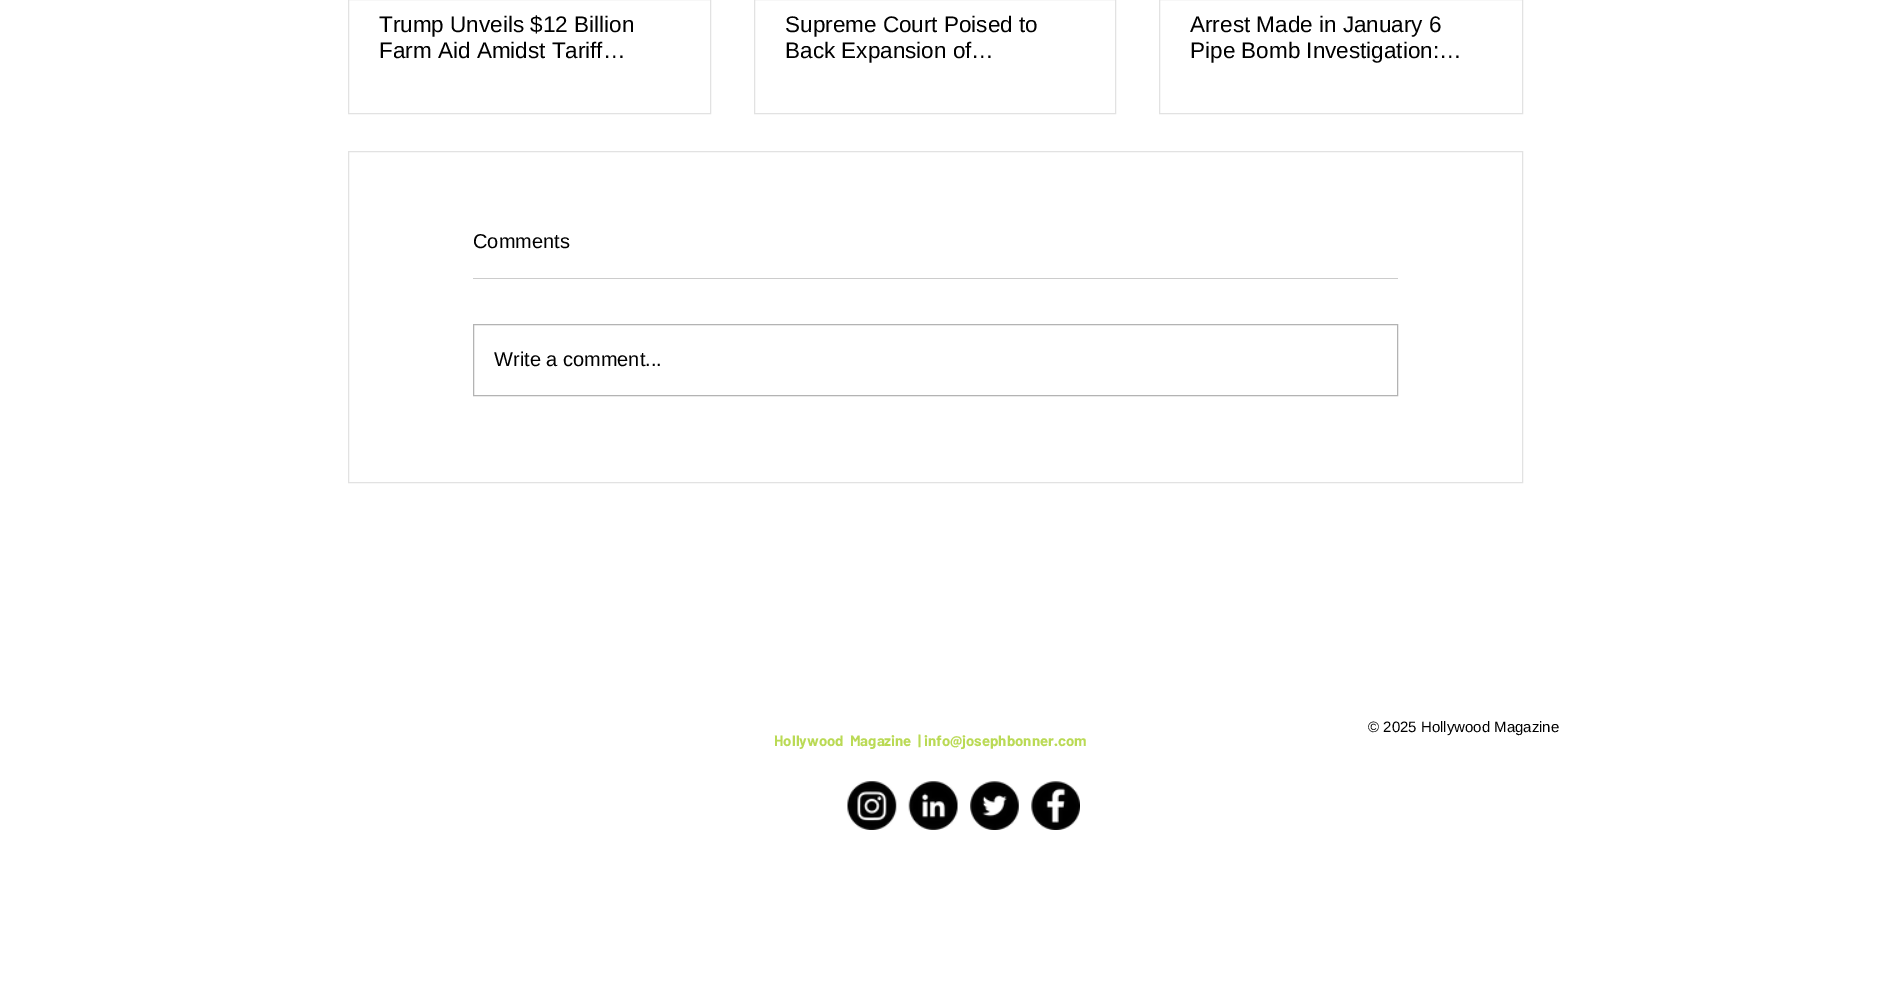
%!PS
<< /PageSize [1892 993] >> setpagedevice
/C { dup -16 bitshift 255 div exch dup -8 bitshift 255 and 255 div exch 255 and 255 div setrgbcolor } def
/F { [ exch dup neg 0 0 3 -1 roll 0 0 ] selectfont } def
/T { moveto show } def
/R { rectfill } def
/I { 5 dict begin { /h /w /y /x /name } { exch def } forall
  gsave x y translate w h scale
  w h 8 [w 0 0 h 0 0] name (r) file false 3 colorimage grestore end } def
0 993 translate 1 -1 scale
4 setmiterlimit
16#FFFFFF C
0 0 1892 993 R
16#E2E2E2 C
348.5 -.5 362 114 rectstroke
/LiberationSans-Regular 22.5 F
16#000000 C
(Trump Unveils $12 Billion) 379 32 T
(Farm Aid Amidst Tariff…) 379 58 T
16#E2E2E2 C
754.5 -.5 361 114 rectstroke
16#000000 C
(Supreme Court Poised to) 785 32 T
(Back Expansion of…) 785 58 T
16#E2E2E2 C
1159.5 -.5 363 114 rectstroke
16#000000 C
(Arrest Made in January 6) 1190 32 T
(Pipe Bomb Investigation:…) 1190 58 T
16#E2E2E2 C
348.5 151.5 1174 331 rectstroke
/LiberationSans-Regular 20 F
16#000000 C
(Comments) 473 248 T
16#CCCCCC C
473 278 925 1 R
16#B3B3B3 C
473.5 324.5 924 71 rectstroke
16#000000 C
(Write a comment...) 494 366 T
/LiberationSans-Regular 15 F
(© 2025 Hollywood Magazine) 1368 732 T
/Barlow-Bold 15 F
16#BADA55 C
(Hollywood  Magazine  | info@josephbonner.com) 774 746 T
(1.rgb) 847 781 50 49 I
(2.rgb) 908 781 50 49 I
(3.rgb) 970 781 49 49 I
(4.rgb) 1031 781 49 49 I
showpage
